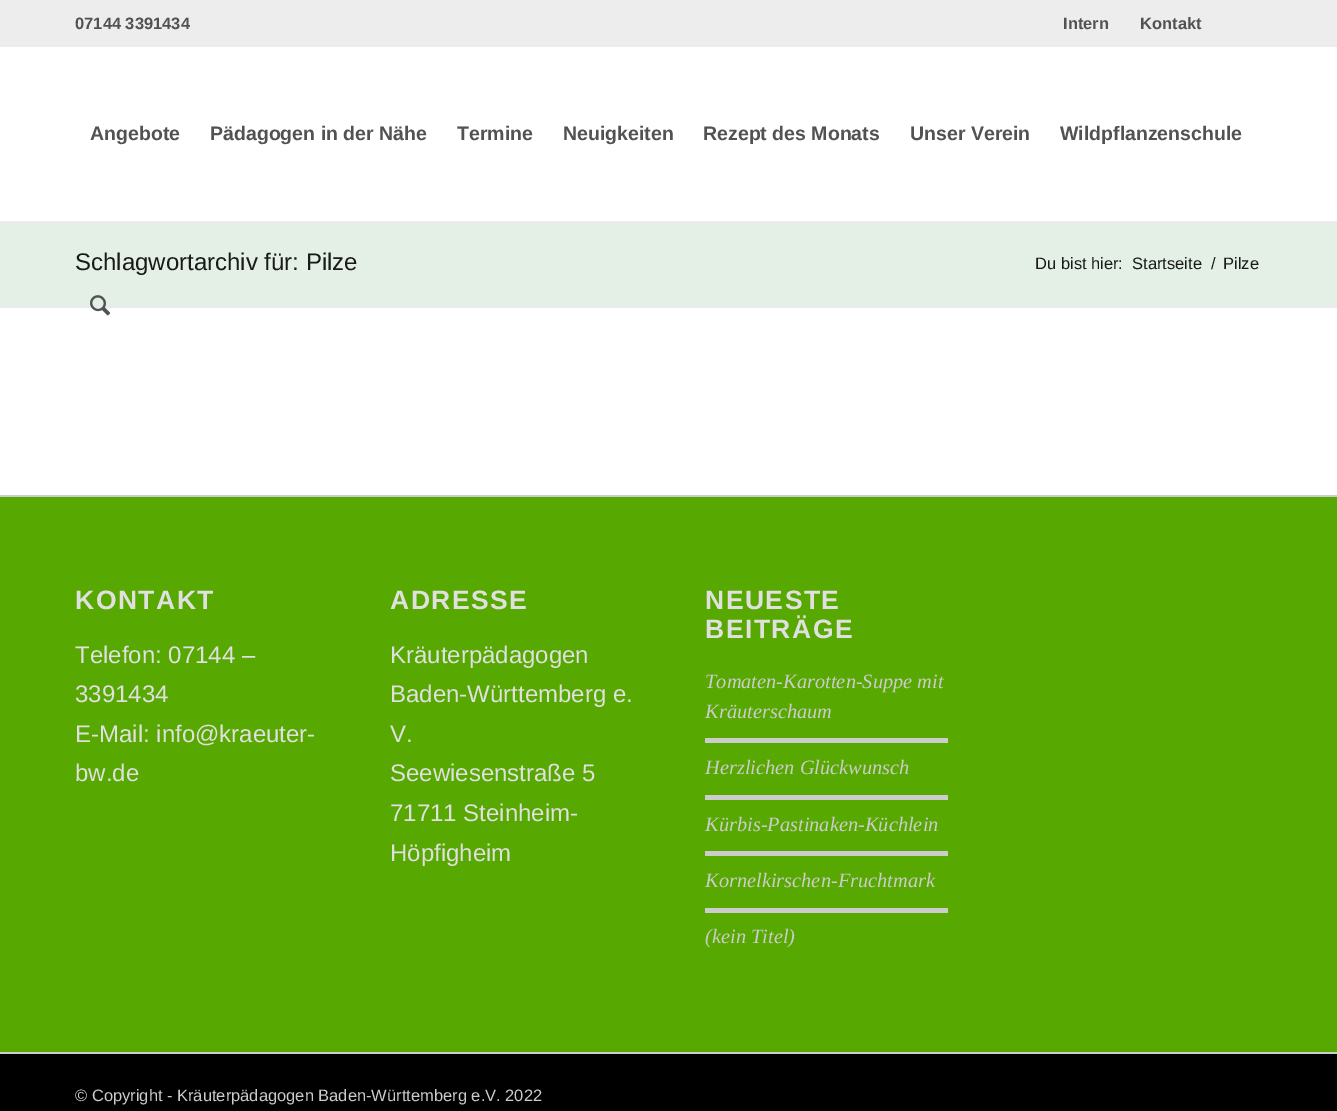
%!PS
<< /PageSize [1337 1111] >> setpagedevice
/m/moveto load def
/C { dup -16 bitshift 255 div exch dup -8 bitshift 255 and 255 div exch 255 and 255 div setrgbcolor } def
/F { [ exch dup neg 0 0 3 -1 roll 0 0 ] selectfont } def
/T { moveto show } def
/R { rectfill } def
/I { 5 dict begin { /h /w /y /x /name } { exch def } forall
  gsave x y translate w h scale
  w h 8 [w 0 0 h 0 0] name (r) file false 3 colorimage grestore end } def
0 1111 translate 1 -1 scale
4 setmiterlimit
16#FFFFFF C
0 0 1337 1111 R
16#EDEDED C
0 0 1337 45 R
16#EBEBEB C
0 45 1337 2 R
/LiberationSans-Bold 16.5 F
16#525252 C
(07144 3391434) 75 29 T
(Intern) 1063 29 T
(Kontakt) 1140 29 T
16#EBEBEB C
0 221 1337 2 R
/LiberationSans-Bold 19.5 F
16#525252 C
(Angebote) 90 140 T
(Pädagogen in der Nähe) 210 140 T
(Termine) 457 140 T
(Neuigkeiten) 563 140 T
(Rezept des Monats) 703 140 T
(Unser Verein) 910 140 T
(Wildpflanzenschule) 1060 140 T
16#E4F0E6 C
0 223 1337 83 R
16#EBEBEB C
0 306 1337 2 R
(1.rgb) 90 295 20 21 I
/LiberationSans-Regular 24 F
16#1A1A1A C
(Schlagwortarchiv für: Pilze) 75 270 T
/LiberationSans-Regular 16.5 F
(Du bist hier:) 1035 269 T
(Startseite) 1132 269 T
(/) 1211 269 T
(Pilze) 1223 269 T
16#57A800 C
0 497 1337 555 R
16#CCCCCC C
0 495 1337 2 R
/LiberationSans-Bold 26.5 F
16#E0E0E0 C
75 609 m 1.5 0 (KONTAKT) ashow
/LiberationSans-Regular 24 F
(Telefon: 07144 –) 75 663 T
(3391434) 75 702 T
(E-Mail: info@kraeuter-) 75 742 T
(bw.de) 75 781 T
/LiberationSans-Bold 26.5 F
390 609 m 1.5 0 (ADRESSE) ashow
/LiberationSans-Regular 24 F
(Kräuterpädagogen) 390 663 T
(Baden-Württemberg e.) 390 702 T
(V.) 390 742 T
(Seewiesenstraße 5) 390 781 T
(71711 Steinheim-) 390 821 T
(Höpfigheim) 390 861 T
/LiberationSans-Bold 26.5 F
705 609 m 1.5 0 (NEUESTE) ashow
705 638 m 1.5 0 (BEITRÄGE) ashow
/LiberationSerif-Italic 20.4 F
16#CCCCCC C
(Tomaten-Karotten-Suppe mit) 705 688 T
(Kräuterschaum) 705 718 T
705 738 243 5 R
(Herzlichen Glückwunsch) 705 774 T
705 795 243 5 R
(Kürbis-Pastinaken-Küchlein) 705 831 T
705 851 243 5 R
(Kornelkirschen-Fruchtmark) 705 887 T
705 908 243 5 R
(\(kein Titel\)) 705 943 T
16#000000 C
0 1054 1337 57 R
16#CCCCCC C
0 1052 1337 2 R
/LiberationSans-Regular 16.5 F
(© Copyright - Kräuterpädagogen Baden-Württemberg e.V. 2022) 75 1101 T
showpage
